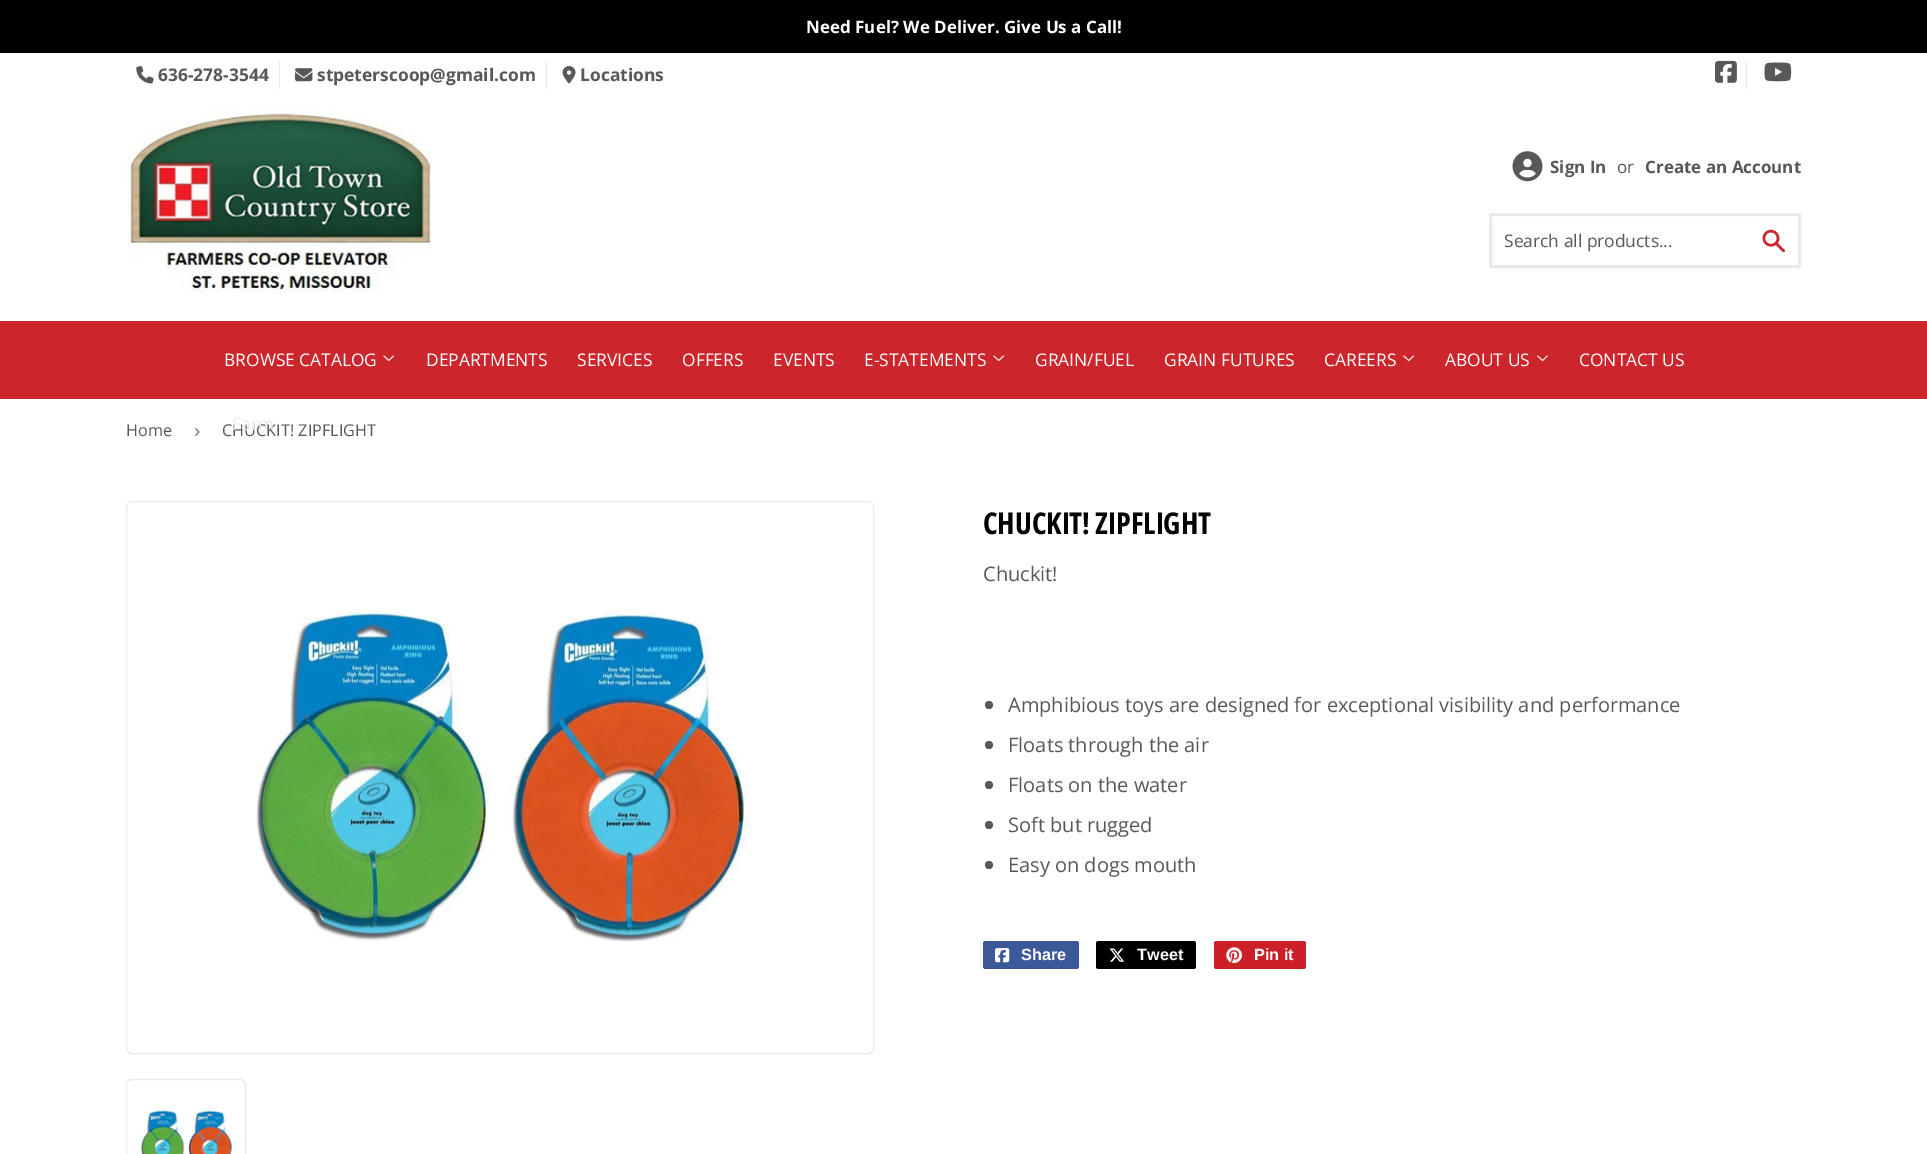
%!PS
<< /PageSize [1927 1154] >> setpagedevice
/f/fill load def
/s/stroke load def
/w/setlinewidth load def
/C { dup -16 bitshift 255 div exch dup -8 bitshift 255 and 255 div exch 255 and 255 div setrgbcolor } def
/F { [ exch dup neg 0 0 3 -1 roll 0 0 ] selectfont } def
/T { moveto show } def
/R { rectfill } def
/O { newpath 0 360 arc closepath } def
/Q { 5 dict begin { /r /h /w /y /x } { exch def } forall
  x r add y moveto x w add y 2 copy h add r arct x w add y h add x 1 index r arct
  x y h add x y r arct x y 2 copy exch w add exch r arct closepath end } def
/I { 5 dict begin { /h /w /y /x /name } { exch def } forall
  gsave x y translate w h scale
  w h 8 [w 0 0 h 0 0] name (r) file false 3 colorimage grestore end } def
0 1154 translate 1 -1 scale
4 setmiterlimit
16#FFFFFF C
0 0 1927 1154 R
16#000000 C
0 0 1927 53 R
/OpenSans-Bold 17 F
16#FFFFFF C
(Need Fuel? We Deliver. Give Us a Call!) 806 33 T
16#EAEAEA C
279 61 1 28 R
(1.rgb) 136 66 18 18 I
/OpenSans-Bold 17.4 F
16#585858 C
(636-278-3544) 158 81 T
16#EAEAEA C
546 61 1 28 R
(2.rgb) 295 68 18 14 I
16#585858 C
(stpeterscoop@gmail.com) 317 81 T
(3.rgb) 562 66 14 18 I
(Locations) 580 81 T
16#EAEAEA C
1746 61 1 28 R
(4.rgb) 1715 60 22 23 I
(5.rgb) 1764 62 28 20 I
(6.rgb) 126 110 308 184 I
(7.rgb) 1512 151 31 31 I
/OpenSans-Bold 17 F
16#585858 C
(Sign In) 1550 173 T
/OpenSans-Regular 17 F
(or) 1617 173 T
/OpenSans-Bold 17 F
(Create an Account) 1645 173 T
16#EAEAEA C
3 w
1490.5 214.5 309 52 1 Q s
/OpenSans-Regular 17.4 F
16#585858 C
(Search all products...) 1504 247 T
(8.rgb) 1762 229 23 24 I
16#CC262C C
0 321 1927 78 R
16#FFFFFF C
(BROWSE CATALOG) 224 366 T
(9.rgb) 383 355 11 7 I
/OpenSans-Regular 16.25 F
16#585858 C
(CHUCKIT! ZIPFLIGHT) 222 436 T
/OpenSans-Regular 17.4 F
16#E9E9E9 C
(Farm) 232 430 T
16#FFFFFF C
(DEPARTMENTS) 426 366 T
(SERVICES) 577 366 T
(OFFERS) 682 366 T
(EVENTS) 773 366 T
(E-STATEMENTS) 864 366 T
(9.rgb) 993 355 11 7 I
(GRAIN/FUEL) 1035 366 T
(GRAIN FUTURES) 1164 366 T
(CAREERS) 1324 366 T
(9.rgb) 1403 355 11 7 I
(ABOUT US) 1445 366 T
(10.rgb) 1537 355 11 7 I
(CONTACT US) 1579 366 T
/OpenSans-Regular 16.25 F
16#585858 C
(Home) 126 436 T
/LiberationSans-Regular 19 F
16#767676 C
(›) 194 437 T
16#EAEAEA C
1 w
126.5 501.5 747 552 5.5 Q s
(11.rgb) 256 607 494 335 I
126.5 1079.5 119 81 5.5 Q s
(12.rgb) 140 1109 93 45 I
/OpenSansCondensed-Bold 30 F
16#000000 C
(CHUCKIT! ZIPFLIGHT) 983 534 T
/OpenSans-Regular 20 F
16#585858 C
(Chuckit!) 983 581 T
989 705 4 O f
(Amphibious toys are designed for exceptional visibility and performance) 1008 712 T
989 745 4 O f
(Floats through the air) 1008 752 T
989 785 4 O f
(Floats on the water) 1008 792 T
989 825 4 O f
(Soft but rugged) 1008 832 T
989 865 4 O f
(Easy on dogs mouth) 1008 872 T
16#3B5998 C
983 941 96 28 2.5 Q f
(13.rgb) 995 948 15 15 I
/LiberationSans-Bold 16.25 F
16#FFFFFF C
(Share) 1021 960 T
16#000000 C
1096 941 100 28 2.5 Q f
(14.rgb) 1109 948 16 14 I
16#FFFFFF C
(Tweet) 1137 960 T
16#CB2027 C
1214 941 92 28 2.5 Q f
(15.rgb) 1226 947 16 16 I
16#FFFFFF C
(Pin it) 1254 960 T
showpage
